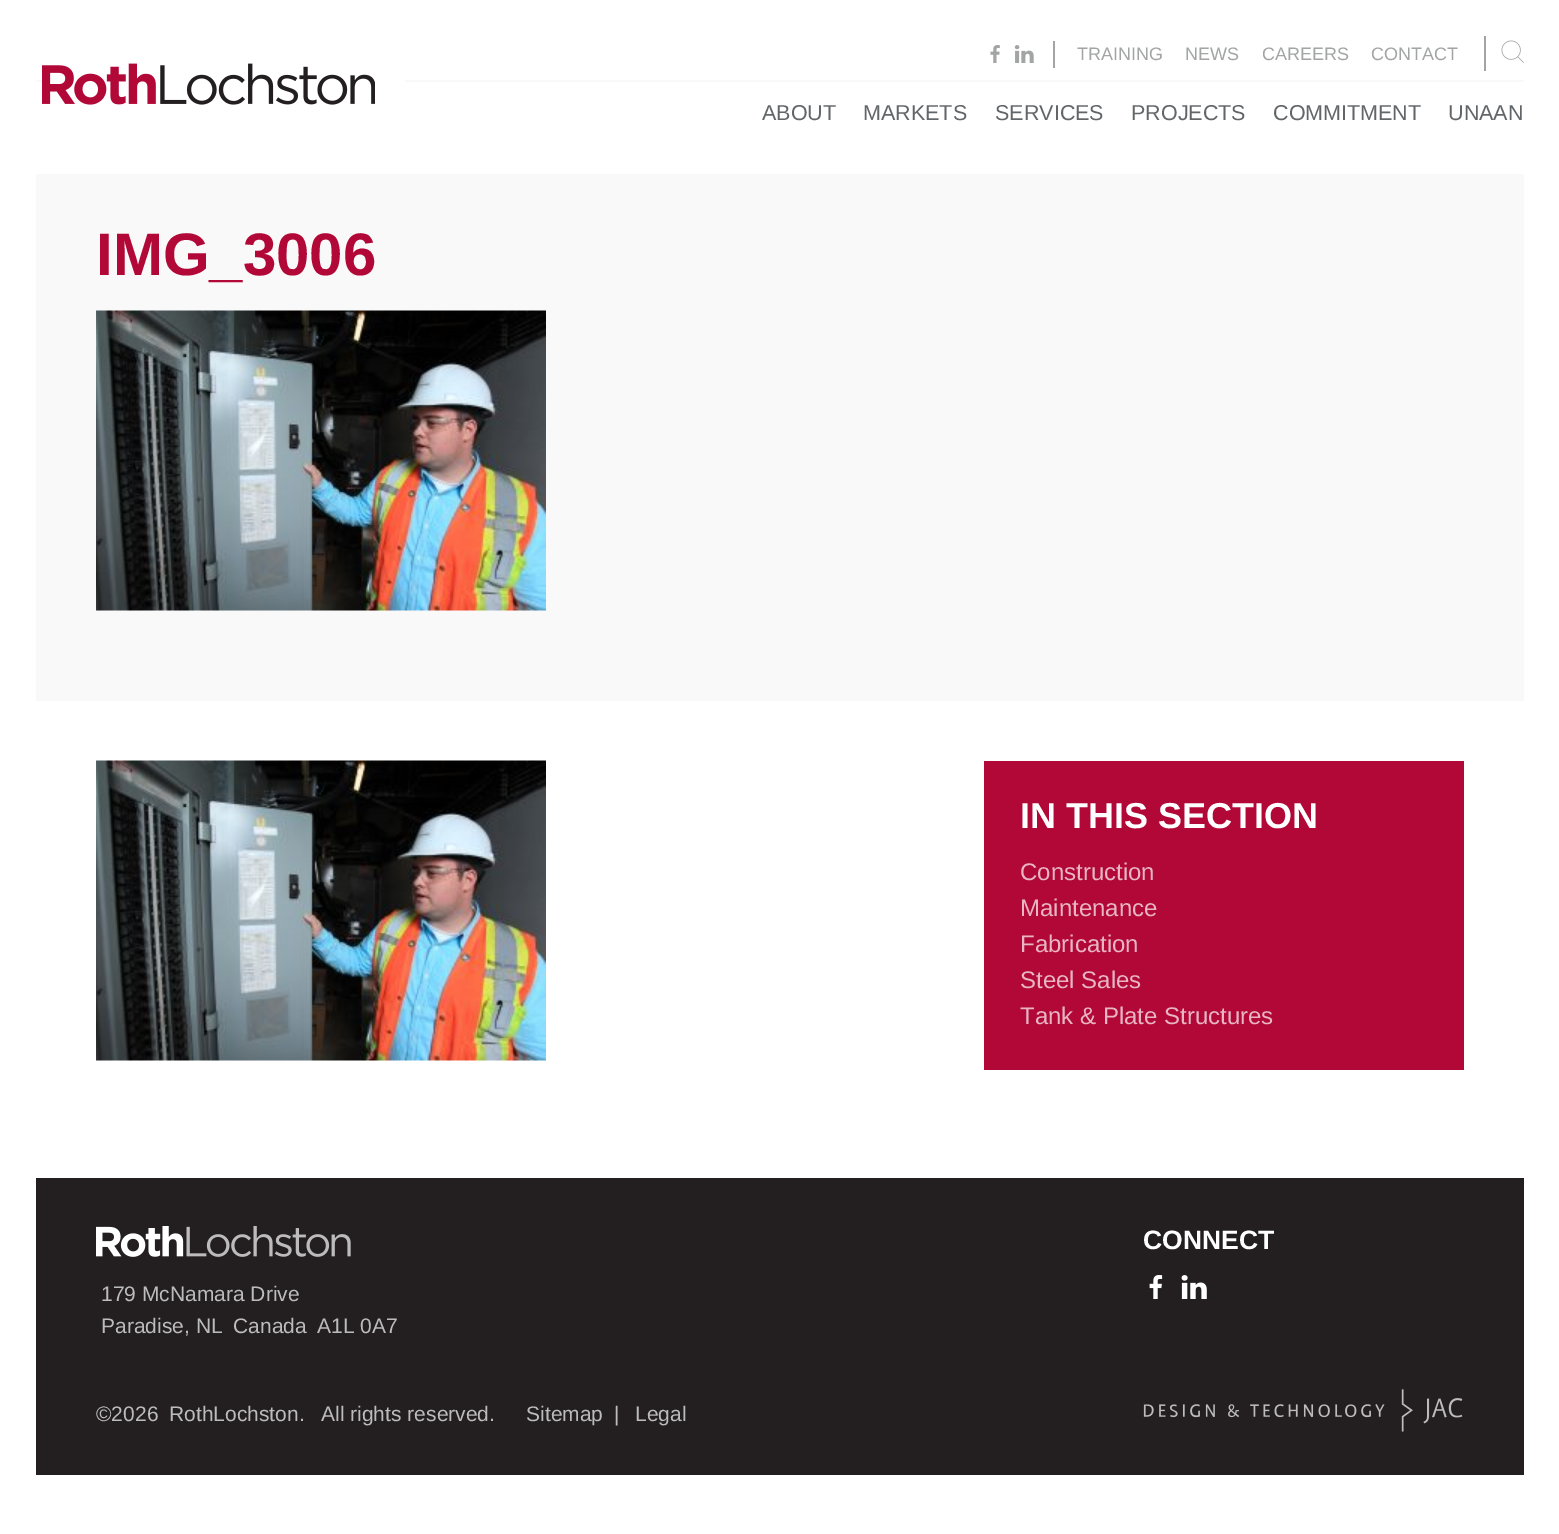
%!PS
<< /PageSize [1559 1534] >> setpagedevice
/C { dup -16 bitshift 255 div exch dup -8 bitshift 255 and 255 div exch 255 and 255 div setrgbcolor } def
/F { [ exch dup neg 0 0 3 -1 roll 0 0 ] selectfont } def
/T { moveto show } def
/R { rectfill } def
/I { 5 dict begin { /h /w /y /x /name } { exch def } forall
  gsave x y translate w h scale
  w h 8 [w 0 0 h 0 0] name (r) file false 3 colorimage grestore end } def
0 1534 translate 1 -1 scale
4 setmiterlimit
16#FFFFFF C
0 0 1559 1534 R
16#F9F9F9 C
36 80 1488 2 R
(1.rgb) 990 45 10 18 I
(2.rgb) 1014 45 20 18 I
16#A3A4A4 C
1053 41 2 27 R
/LiberationSans-Regular 18 F
(TRAINING) 1077 60 T
(NEWS) 1185 60 T
(CAREERS) 1262 60 T
(CONTACT) 1371 60 T
1484 36 2 35 R
(3.rgb) 1501 40 23 23 I
16#FFFFFF C
42 80 363 2 R
(4.rgb) 42 63 333 42 I
/LiberationSans-Regular 21.5 F
16#636668 C
(ABOUT) 762 120 T
(MARKETS) 863 120 T
(SERVICES) 995 120 T
(PROJECTS) 1131 120 T
(COMMITMENT) 1273 120 T
(UNAAN) 1448 120 T
16#F9F9F9 C
36 174 1488 527 R
/LiberationSans-Bold 60 F
16#B20838 C
(IMG_3006) 96 275 T
(5.rgb) 96 310 450 301 I
(6.rgb) 96 760 450 301 I
984 761 480 309 R
/LiberationSans-Bold 36 F
16#FFFFFF C
(IN THIS SECTION) 1020 828 T
/LiberationSans-Regular 24 F
16#E8B5C3 C
(Construction) 1020 880 T
(Maintenance) 1020 916 T
(Fabrication) 1020 952 T
(Steel Sales) 1020 988 T
(Tank & Plate Structures) 1020 1024 T
16#231F20 C
36 1178 1488 297 R
/LiberationSans-Bold 26.5 F
16#FFFFFF C
(CONNECT) 1143 1249 T
(7.rgb) 1149 1275 14 24 I
(8.rgb) 1181 1275 26 24 I
(9.rgb) 96 1226 255 31 I
/LiberationSans-Regular 21 F
16#BDBCBC C
(179 McNamara Drive) 101 1301 T
(Paradise, NL) 101 1333 T
(Canada) 233 1333 T
(A1L 0A7) 317 1333 T
(©2026) 96 1421 T
(RothLochston.) 169 1421 T
(All rights reserved.) 321 1421 T
(Sitemap) 526 1421 T
(|) 614 1421 T
(Legal) 635 1421 T
(10.rgb) 1143 1389 320 43 I
showpage
